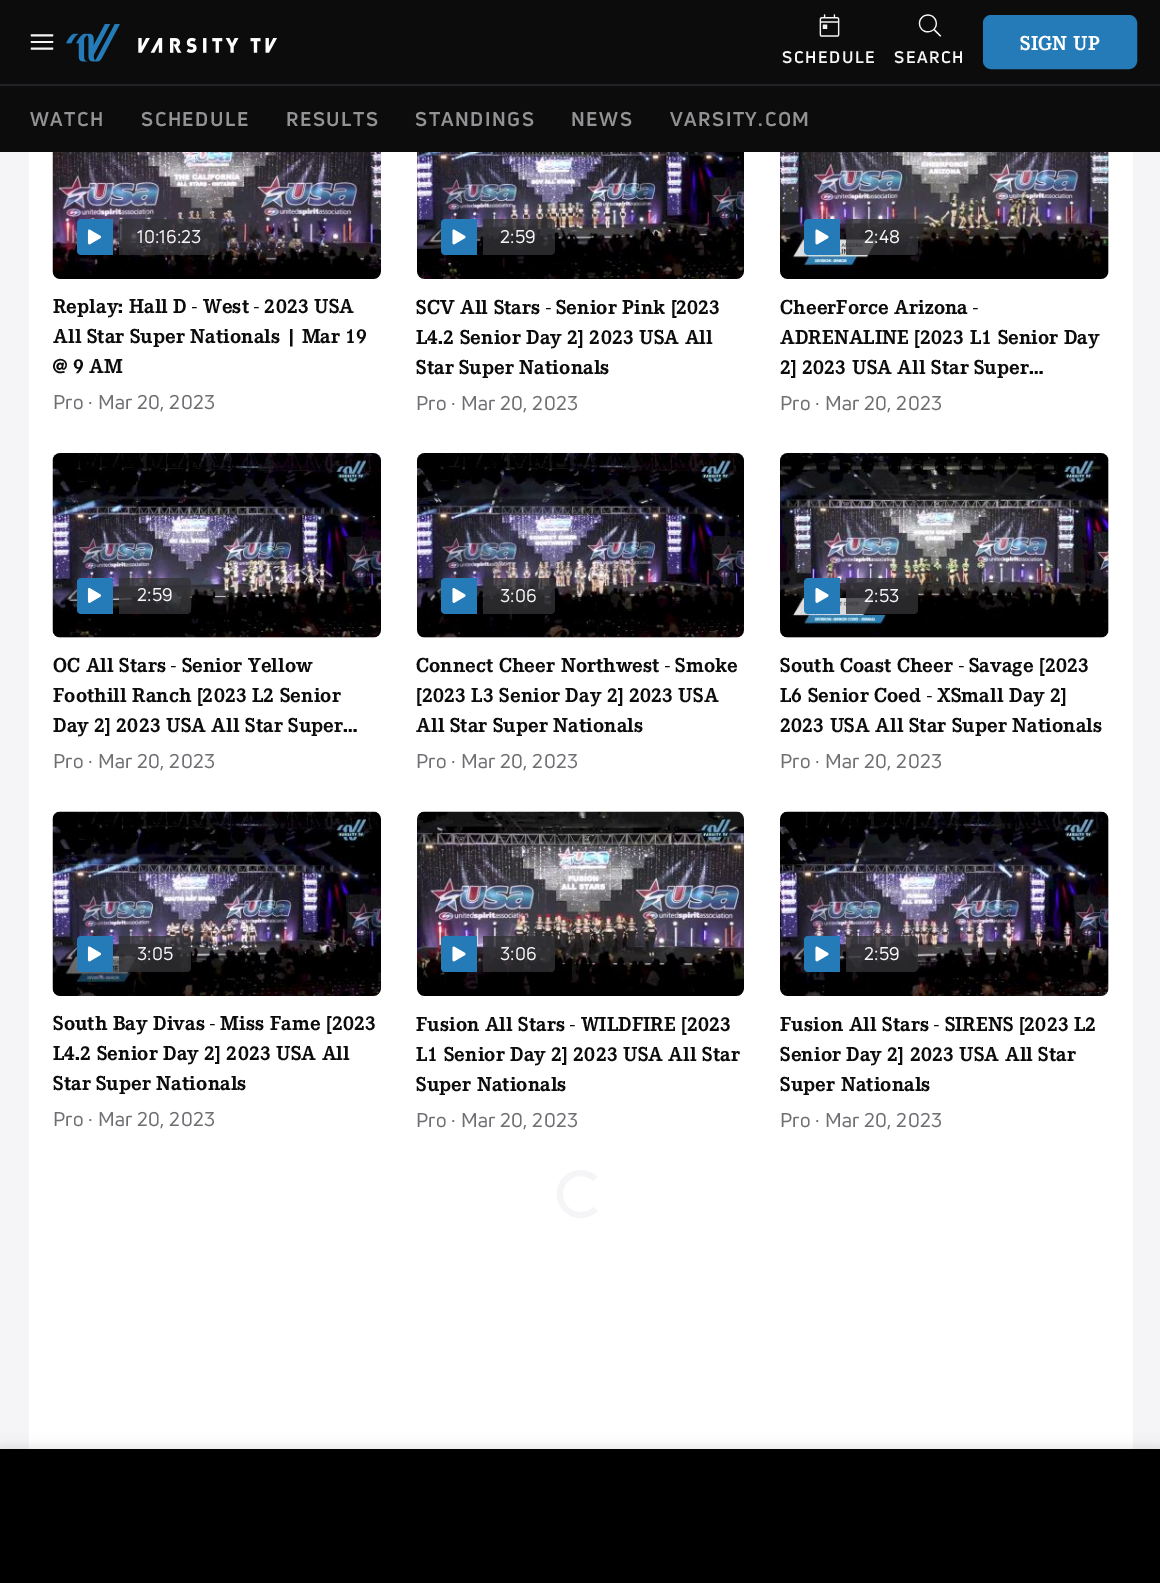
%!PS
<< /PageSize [1160 1583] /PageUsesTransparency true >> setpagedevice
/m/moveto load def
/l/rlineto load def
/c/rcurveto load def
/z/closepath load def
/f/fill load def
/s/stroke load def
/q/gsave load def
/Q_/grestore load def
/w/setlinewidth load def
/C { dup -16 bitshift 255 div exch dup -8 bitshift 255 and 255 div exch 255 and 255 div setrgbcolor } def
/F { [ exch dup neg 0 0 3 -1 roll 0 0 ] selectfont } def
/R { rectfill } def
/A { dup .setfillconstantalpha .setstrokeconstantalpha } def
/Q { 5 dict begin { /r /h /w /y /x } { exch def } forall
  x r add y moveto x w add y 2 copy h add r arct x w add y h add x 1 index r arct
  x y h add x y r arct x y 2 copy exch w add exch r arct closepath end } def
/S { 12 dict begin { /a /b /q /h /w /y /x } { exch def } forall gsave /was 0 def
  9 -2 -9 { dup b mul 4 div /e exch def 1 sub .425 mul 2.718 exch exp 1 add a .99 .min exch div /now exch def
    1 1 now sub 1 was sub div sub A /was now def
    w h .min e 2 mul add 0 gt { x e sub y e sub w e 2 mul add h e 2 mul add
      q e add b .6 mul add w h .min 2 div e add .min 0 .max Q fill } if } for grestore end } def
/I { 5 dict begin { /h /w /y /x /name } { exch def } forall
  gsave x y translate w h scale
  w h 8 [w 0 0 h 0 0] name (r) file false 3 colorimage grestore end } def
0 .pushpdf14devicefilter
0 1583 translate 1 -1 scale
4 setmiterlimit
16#F5F5F7 C
0 0 1160 1583 R
16#FFFFFF C
29 152 1104 1297 R
16#E7E7E7 C
780 95 329 184 8 Q f
16#0C0C0C C
0 0 1160 152 R
(1.rgb) 30 34 24 16 I
(2.rgb) 66 24 211 38 I
16#247BB8 C
984 16 152 52 7 Q q f Q_
2 w
s
/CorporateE-Bold 21 F
16#FFFFFF C
1020 50 m .25 0 (SIGN UP) ashow
(3.rgb) 819 14 21 23 I
/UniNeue-Bold 16.5 F
16#F5F5F7 C
782 63 m 1.5 0 (SCHEDULE) ashow
(4.rgb) 918 14 24 23 I
894 63 m 1.5 0 (SEARCH) ashow
16#232327 C
0 84 1160 2 R
/UniNeue-Bold 19.5 F
16#939396 C
30 126 m 1.5 0 (WATCH) ashow
141 126 m 1.5 0 (SCHEDULE) ashow
286 126 m 1.5 0 (RESULTS) ashow
415 126 m 1.5 0 (STANDINGS) ashow
571 126 m 1.5 0 (NEWS) ashow
670 126 m 1.5 0 (VARSITY.COM) ashow
(5.rgb) 52 152 329 127 I
16#247BB8 C
81 219 m 32 0 l 0 36 l -32 0 l -2 0 -4 -2 -4 -4 c 0 -28 l 0 -2 2 -4 4 -4 c z f
(6.rgb) 87 229 14 16 I
0.8 A
16#323236 C
119 219 m 96 0 l 2 0 4 2 4 4 c 0 28 l 0 2 -2 4 -4 4 c -96 0 l z f
/UniNeue-Regular 18 F
1 A
16#F5F5F7 C
137 243 m .15 0 (10:16:23) ashow
/CorporateE-Bold 21 F
16#0C0C0C C
53 313 m .15 0 (Replay: Hall D - West - 2023 USA) ashow
53 343 m .15 0 (All Star Super Nationals | Mar 19) ashow
q
53 291 328 90 rectclip
53 373 m .15 0 (@ 9 AM) ashow
Q_
/UniNeue-Regular 19.5 F
16#6F6F73 C
53 409 m .25 0 (Pro · Mar 20, 2023) ashow
(7.rgb) 417 152 327 127 I
16#247BB8 C
445 219 m 32 0 l 0 36 l -32 0 l -2 0 -4 -2 -4 -4 c 0 -28 l 0 -2 2 -4 4 -4 c z f
(8.rgb) 452 229 14 16 I
0.8 A
16#323236 C
483 219 m 68 0 l 2 0 4 2 4 4 c 0 28 l 0 2 -2 4 -4 4 c -68 0 l z f
/UniNeue-Regular 18 F
1 A
16#F5F5F7 C
500 243 m .15 0 (2:59) ashow
/CorporateE-Bold 21 F
16#0C0C0C C
416 314 m .15 0 (SCV All Stars - Senior Pink [2023) ashow
416 344 m .15 0 (L4.2 Senior Day 2] 2023 USA All) ashow
416 374 m .15 0 (Star Super Nationals) ashow
/UniNeue-Regular 19.5 F
16#6F6F73 C
416 410 m .25 0 (Pro · Mar 20, 2023) ashow
(9.rgb) 780 152 329 127 I
16#247BB8 C
808 219 m 32 0 l 0 36 l -32 0 l -2 0 -4 -2 -4 -4 c 0 -28 l 0 -2 2 -4 4 -4 c z f
(8.rgb) 815 229 14 16 I
0.8 A
16#323236 C
846 219 m 68 0 l 2 0 4 2 4 4 c 0 28 l 0 2 -2 4 -4 4 c -68 0 l z f
/UniNeue-Regular 18 F
1 A
16#F5F5F7 C
864 243 m .15 0 (2:48) ashow
/CorporateE-Bold 21 F
16#0C0C0C C
780 314 m .15 0 (CheerForce Arizona -) ashow
780 344 m .15 0 (ADRENALINE [2023 L1 Senior Day) ashow
780 374 m .15 0 (2] 2023 USA All Star Super…) ashow
/UniNeue-Regular 19.5 F
16#6F6F73 C
780 410 m .25 0 (Pro · Mar 20, 2023) ashow
16#E7E7E7 C
53 453 328 185 8 Q f
(10.rgb) 52 453 329 185 I
16#247BB8 C
81 578 m 32 0 l 0 36 l -32 0 l -2 0 -4 -2 -4 -4 c 0 -28 l 0 -2 2 -4 4 -4 c z f
(11.rgb) 87 588 14 15 I
0.8 A
16#323236 C
119 578 m 68 0 l 2 0 4 2 4 4 c 0 28 l 0 2 -2 4 -4 4 c -68 0 l z f
/UniNeue-Regular 18 F
1 A
16#F5F5F7 C
137 601 m .15 0 (2:59) ashow
/CorporateE-Bold 21 F
16#0C0C0C C
53 672 m .15 0 (OC All Stars - Senior Yellow) ashow
53 702 m .15 0 (Foothill Ranch [2023 L2 Senior) ashow
53 732 m .15 0 (Day 2] 2023 USA All Star Super…) ashow
/UniNeue-Regular 19.5 F
16#6F6F73 C
53 768 m .25 0 (Pro · Mar 20, 2023) ashow
16#E7E7E7 C
417 453 327 185 8 Q f
(12.rgb) 417 453 327 185 I
16#247BB8 C
445 578 m 32 0 l 0 36 l -32 0 l -2 0 -4 -2 -4 -4 c 0 -28 l 0 -2 2 -4 4 -4 c z f
(13.rgb) 452 588 14 15 I
0.8 A
16#323236 C
483 578 m 68 0 l 2 0 4 2 4 4 c 0 28 l 0 2 -2 4 -4 4 c -68 0 l z f
/UniNeue-Regular 18 F
1 A
16#F5F5F7 C
500 602 m .15 0 (3:06) ashow
/CorporateE-Bold 21 F
16#0C0C0C C
416 672 m .15 0 (Connect Cheer Northwest - Smoke) ashow
416 702 m .15 0 ([2023 L3 Senior Day 2] 2023 USA) ashow
416 732 m .15 0 (All Star Super Nationals) ashow
/UniNeue-Regular 19.5 F
16#6F6F73 C
416 768 m .25 0 (Pro · Mar 20, 2023) ashow
16#E7E7E7 C
780 453 329 185 8 Q f
(14.rgb) 780 453 329 185 I
16#247BB8 C
808 578 m 32 0 l 0 36 l -32 0 l -2 0 -4 -2 -4 -4 c 0 -28 l 0 -2 2 -4 4 -4 c z f
(13.rgb) 815 588 14 15 I
0.8 A
16#323236 C
846 578 m 68 0 l 2 0 4 2 4 4 c 0 28 l 0 2 -2 4 -4 4 c -68 0 l z f
/UniNeue-Regular 18 F
1 A
16#F5F5F7 C
864 602 m .15 0 (2:53) ashow
/CorporateE-Bold 21 F
16#0C0C0C C
780 672 m .15 0 (South Coast Cheer - Savage [2023) ashow
780 702 m .15 0 (L6 Senior Coed - XSmall Day 2]) ashow
780 732 m .15 0 (2023 USA All Star Super Nationals) ashow
/UniNeue-Regular 19.5 F
16#6F6F73 C
780 768 m .25 0 (Pro · Mar 20, 2023) ashow
(15.rgb) 52 811 329 185 I
16#247BB8 C
81 936 m 32 0 l 0 36 l -32 0 l -2 0 -4 -2 -4 -4 c 0 -28 l 0 -2 2 -4 4 -4 c z f
(16.rgb) 87 946 14 16 I
0.8 A
16#323236 C
119 936 m 68 0 l 2 0 4 2 4 4 c 0 28 l 0 2 -2 4 -4 4 c -68 0 l z f
/UniNeue-Regular 18 F
1 A
16#F5F5F7 C
137 960 m .15 0 (3:05) ashow
/CorporateE-Bold 21 F
16#0C0C0C C
53 1030 m .15 0 (South Bay Divas - Miss Fame [2023) ashow
53 1060 m .15 0 (L4.2 Senior Day 2] 2023 USA All) ashow
53 1090 m .15 0 (Star Super Nationals) ashow
/UniNeue-Regular 19.5 F
16#6F6F73 C
53 1126 m .25 0 (Pro · Mar 20, 2023) ashow
(17.rgb) 417 811 327 185 I
16#247BB8 C
445 936 m 32 0 l 0 36 l -32 0 l -2 0 -4 -2 -4 -4 c 0 -28 l 0 -2 2 -4 4 -4 c z f
(18.rgb) 452 946 14 16 I
0.8 A
16#323236 C
483 936 m 68 0 l 2 0 4 2 4 4 c 0 28 l 0 2 -2 4 -4 4 c -68 0 l z f
/UniNeue-Regular 18 F
1 A
16#F5F5F7 C
500 960 m .15 0 (3:06) ashow
/CorporateE-Bold 21 F
16#0C0C0C C
416 1031 m .15 0 (Fusion All Stars - WILDFIRE [2023) ashow
416 1061 m .15 0 (L1 Senior Day 2] 2023 USA All Star) ashow
416 1091 m .15 0 (Super Nationals) ashow
/UniNeue-Regular 19.5 F
16#6F6F73 C
416 1127 m .25 0 (Pro · Mar 20, 2023) ashow
16#E7E7E7 C
780 812 329 184 8 Q f
(19.rgb) 780 811 329 185 I
16#247BB8 C
808 936 m 32 0 l 0 36 l -32 0 l -2 0 -4 -2 -4 -4 c 0 -28 l 0 -2 2 -4 4 -4 c z f
(18.rgb) 815 946 14 16 I
0.8 A
16#323236 C
846 936 m 68 0 l 2 0 4 2 4 4 c 0 28 l 0 2 -2 4 -4 4 c -68 0 l z f
/UniNeue-Regular 18 F
1 A
16#F5F5F7 C
864 960 m .15 0 (2:59) ashow
/CorporateE-Bold 21 F
16#0C0C0C C
780 1031 m .15 0 (Fusion All Stars - SIRENS [2023 L2) ashow
780 1061 m .15 0 (Senior Day 2] 2023 USA All Star) ashow
780 1091 m .15 0 (Super Nationals) ashow
/UniNeue-Regular 19.5 F
16#6F6F73 C
780 1127 m .25 0 (Pro · Mar 20, 2023) ashow
16#F5F5F7 C
6 w
595.5 1209 m -4 4 -9.5 6 -15 6 c -25 0 -28.5 -36.5 -4 -41.5 c 6.5 -1.5 14 .5 19 5.5 c s
16#000000 C
0 1446 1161 135 0 6 .1 S
0 1449 1160 134 R
.poppdf14devicefilter showpage
